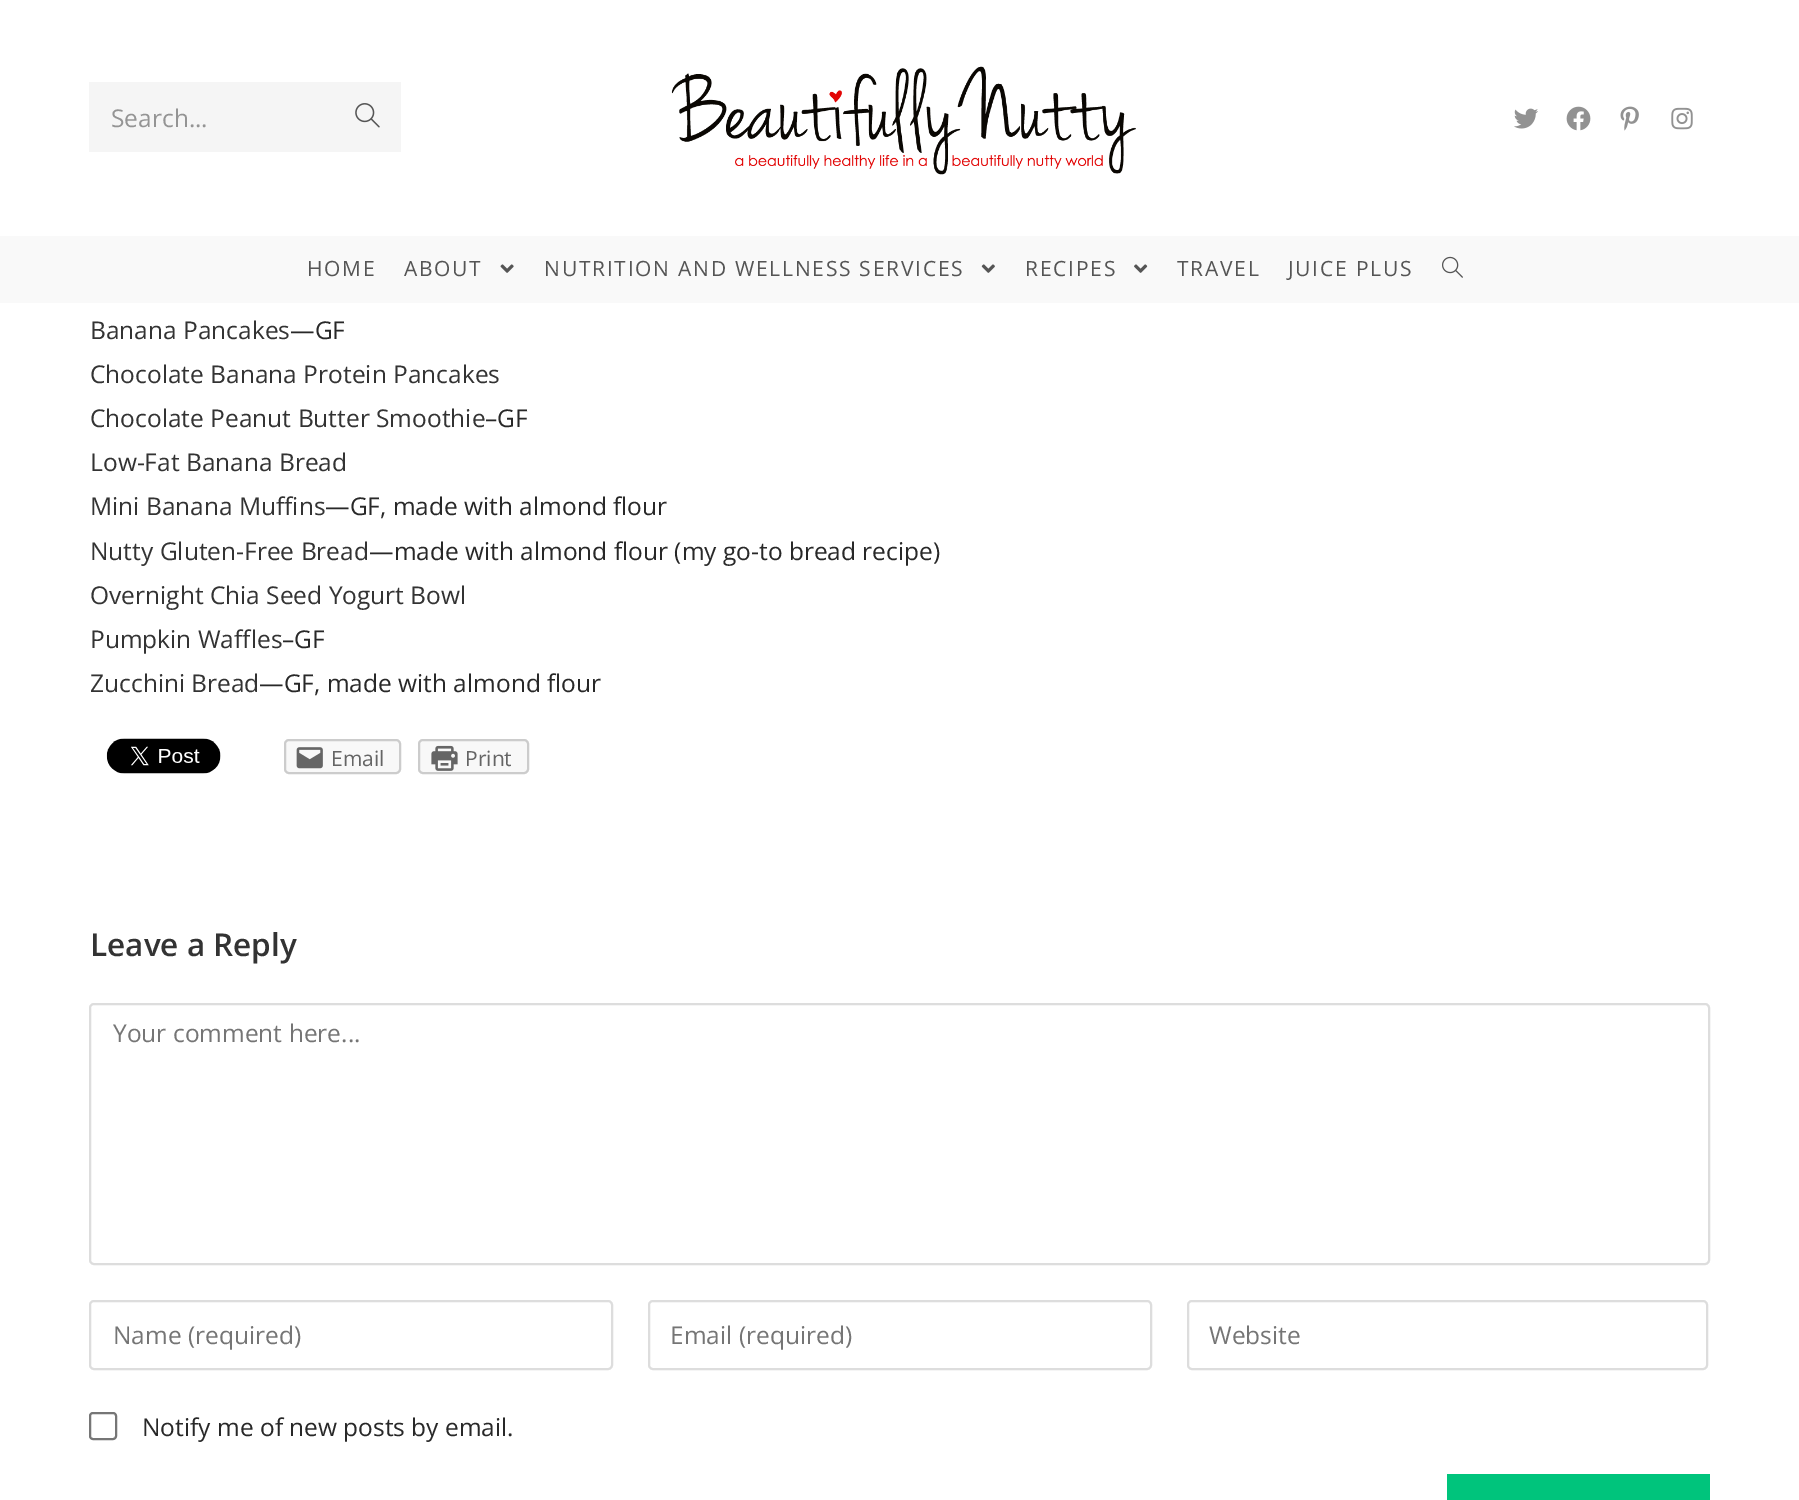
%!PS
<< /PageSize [1799 1500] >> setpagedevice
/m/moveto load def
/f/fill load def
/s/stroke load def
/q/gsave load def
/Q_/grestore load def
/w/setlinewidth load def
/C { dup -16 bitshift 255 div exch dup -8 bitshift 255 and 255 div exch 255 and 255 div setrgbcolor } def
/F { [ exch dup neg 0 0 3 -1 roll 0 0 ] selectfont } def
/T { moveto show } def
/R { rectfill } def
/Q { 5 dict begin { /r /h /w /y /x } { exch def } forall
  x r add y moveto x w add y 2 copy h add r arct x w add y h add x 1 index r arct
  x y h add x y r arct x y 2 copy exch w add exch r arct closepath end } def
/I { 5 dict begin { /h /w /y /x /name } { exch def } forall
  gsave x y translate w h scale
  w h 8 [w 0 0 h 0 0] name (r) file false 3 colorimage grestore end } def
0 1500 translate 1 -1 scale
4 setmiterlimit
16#FFFFFF C
0 0 1799 1500 R
16#F5F5F5 C
89 82 312 70 R
/OpenSans-Regular 24.5 F
16#949494 C
(Search...) 111 127 T
(1.rgb) 355 103 25 25 I
(2.rgb) 671 66 465 109 I
(3.rgb) 1514 108 24 21 I
(4.rgb) 1566 106 25 25 I
(5.rgb) 1620 106 19 25 I
(6.rgb) 1671 107 22 23 I
16#F9F9F9 C
0 236 1799 67 R
/OpenSans-Regular 21 F
16#555555 C
307 276 m 1.75 0 (HOME) ashow
404 276 m 1.75 0 (ABOUT) ashow
(7.rgb) 500 264 14 9 I
544 276 m 1.75 0 (NUTRITION AND WELLNESS SERVICES) ashow
(8.rgb) 981 264 14 9 I
1025 276 m 1.75 0 (RECIPES) ashow
(9.rgb) 1134 264 14 9 I
1177 276 m 1.75 0 (TRAVEL) ashow
1288 276 m 1.75 0 (JUICE PLUS) ashow
(10.rgb) 1442 256 21 22 I
/OpenSans-Regular 24.5 F
16#333333 C
(Banana Pancakes) 90 339 T
16#282828 C
(—GF) 290 339 T
16#333333 C
(Chocolate Banana Protein Pancakes) 90 383 T
(Chocolate Peanut Butter Smoothie) 90 427 T
16#282828 C
(–GF) 485 427 T
16#333333 C
(Low-Fat Banana Bread) 90 471 T
(Mini Banana Muffins) 90 515 T
16#282828 C
(—GF, made with almond flour) 325 515 T
16#333333 C
(Nutty Gluten-Free Bread) 90 560 T
16#282828 C
(—made with almond flour \(my go-to bread recipe\)) 369 560 T
16#333333 C
(Overnight Chia Seed Yogurt Bowl) 90 604 T
(Pumpkin Waffles) 90 648 T
16#282828 C
(–GF) 282 648 T
16#333333 C
(Zucchini Bread) 90 692 T
16#282828 C
(—GF, made with almond flour) 259 692 T
(11.rgb) 106 738 115 36 I
16#F8F8F8 C
285 740 115 33 4 Q q f Q_
16#CCCCCC C
2 w
s
(12.rgb) 296 747 27 22 I
/OpenSans-Regular 21 F
16#656565 C
(Email) 331 766 T
16#F8F8F8 C
419 740 109 33 4 Q q f Q_
16#CCCCCC C
s
(13.rgb) 431 745 27 26 I
16#656565 C
(Print) 465 766 T
/OpenSans-SemiBold 31.5 F
16#333333 C
(Leave a Reply) 90 956 T
16#DDDDDD C
90 1004 1619 260 4 Q s
/OpenSans-Regular 24.5 F
16#757575 C
(Your comment here...) 113 1042 T
16#DDDDDD C
90 1301 522 68 4 Q s
16#757575 C
(Name \(required\)) 113 1344 T
16#DDDDDD C
649 1301 502 68 4 Q s
16#757575 C
(Email \(required\)) 670 1344 T
16#DDDDDD C
1188 1301 519 68 4 Q s
16#757575 C
(Website) 1209 1344 T
16#767676 C
90 1413 26 26 3 Q s
16#282828 C
(Notify me of new posts by email.) 142 1436 T
16#00C47C C
1447 1474 263 26 R
showpage
